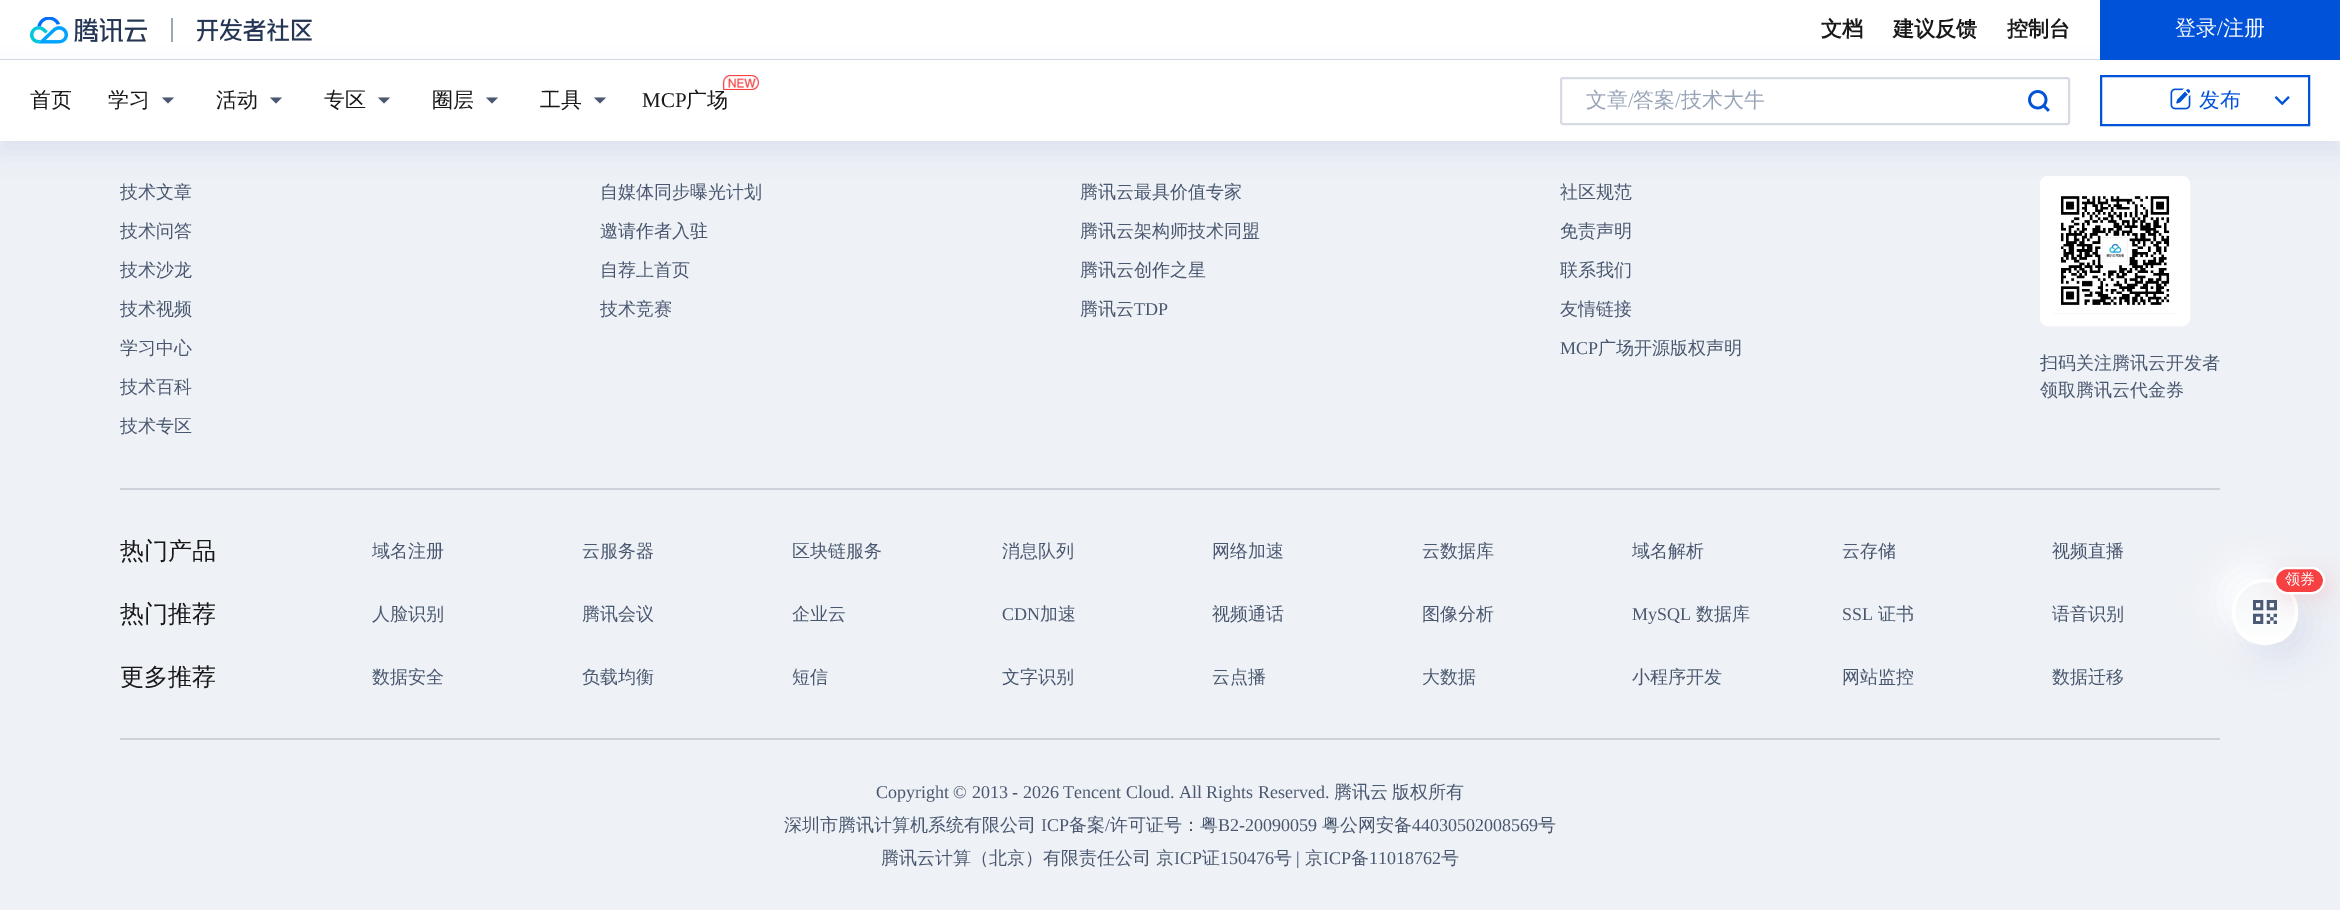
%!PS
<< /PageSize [2340 910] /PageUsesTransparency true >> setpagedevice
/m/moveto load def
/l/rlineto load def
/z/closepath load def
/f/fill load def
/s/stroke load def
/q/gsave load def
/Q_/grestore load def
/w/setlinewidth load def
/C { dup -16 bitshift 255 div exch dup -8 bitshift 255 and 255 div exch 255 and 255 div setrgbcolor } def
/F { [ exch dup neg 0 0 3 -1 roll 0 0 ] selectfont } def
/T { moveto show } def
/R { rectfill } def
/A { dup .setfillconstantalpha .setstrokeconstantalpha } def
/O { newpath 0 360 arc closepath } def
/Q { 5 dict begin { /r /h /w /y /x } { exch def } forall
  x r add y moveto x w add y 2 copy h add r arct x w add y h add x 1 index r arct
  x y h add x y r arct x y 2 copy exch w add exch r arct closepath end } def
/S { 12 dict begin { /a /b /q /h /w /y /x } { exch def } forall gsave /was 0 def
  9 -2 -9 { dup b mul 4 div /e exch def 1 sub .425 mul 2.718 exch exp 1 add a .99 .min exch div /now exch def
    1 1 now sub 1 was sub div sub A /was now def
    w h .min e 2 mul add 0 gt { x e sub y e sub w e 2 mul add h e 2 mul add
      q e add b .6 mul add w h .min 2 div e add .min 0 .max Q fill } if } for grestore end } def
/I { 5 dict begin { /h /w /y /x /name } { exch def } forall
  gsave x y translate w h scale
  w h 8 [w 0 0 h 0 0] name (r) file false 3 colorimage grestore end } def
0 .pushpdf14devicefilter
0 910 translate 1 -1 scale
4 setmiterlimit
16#EEF1F5 C
0 0 2340 910 R
16#FFFFFF C
0 0 2100 59 R
16#D6DBE3 C
0 59 2100 1 R
(1.rgb) 30 17 117 27 I
16#9BA6B7 C
171 18 2 24 R
(2.rgb) 197 18 115 24 I
/WenQuanYiZenHei-Bold 21 F
16#181818 C
(文档) 1821 36 T
(建议反馈) 1893 36 T
(控制台) 2007 36 T
16#0052D9 C
2100 0 240 60 R
/WenQuanYiZenHei-Medium 21 F
16#FFFFFF C
(登录) 2175 35 T
/LiberationSerif-Regular 21 F
(/) 2217 35 T
/WenQuanYiZenHei-Medium 21 F
(注册) 2223 35 T
12 w
2046 182 138 138 2 Q s
(7.rgb) 2052 188 126 126 I
16#3763AA C
0 72 2340 81 0 12 .1 S
16#FFFFFF C
0 60 2340 81 R
16#181818 C
(首页) 30 107 T
(学习) 108 107 T
16#495770 C
168 103.5 m 6 -6 l -12 0 l z eofill
16#181818 C
(活动) 216 107 T
16#495770 C
276 103.5 m 6 -6 l -12 0 l z eofill
16#181818 C
(专区) 324 107 T
16#495770 C
384 103.5 m 6 -6 l -12 0 l z eofill
16#181818 C
(圈层) 432 107 T
16#495770 C
492 103.5 m 6 -6 l -12 0 l z eofill
16#181818 C
(工具) 540 107 T
16#495770 C
600 103.5 m 6 -6 l -12 0 l z eofill
16#181818 C
(广场) 686 107 T
(3.rgb) 722 75 37 15 I
/LiberationSerif-Regular 21 F
(MCP) 642 107 T
16#D6DBE3 C
2 w
1561 78 508 46 2 Q s
/WenQuanYiZenHei-Medium 21 F
16#97A3B7 C
(文章) 1586 107 T
/LiberationSerif-Regular 21 F
(/) 1628 107 T
/WenQuanYiZenHei-Medium 21 F
(答案) 1633 107 T
/LiberationSerif-Regular 21 F
(/) 1675 107 T
/WenQuanYiZenHei-Medium 21 F
(技术大牛) 1681 107 T
(4.rgb) 2028 90 22 22 I
16#0052D9 C
2101 76 208 49 rectstroke
(5.rgb) 2170 88 21 22 I
(发布) 2199 107 T
(6.rgb) 2274 96 16 10 I
16#CDD2DA C
120 488 2100 2 R
/WenQuanYiZenHei-Medium 18 F
16#495770 C
(技术文章) 120 198 T
(技术问答) 120 237 T
(技术沙龙) 120 276 T
(技术视频) 120 315 T
(学习中心) 120 354 T
(技术百科) 120 393 T
(技术专区) 120 432 T
(自媒体同步曝光计划) 600 198 T
(邀请作者入驻) 600 237 T
(自荐上首页) 600 276 T
(技术竞赛) 600 315 T
(腾讯云最具价值专家) 1080 198 T
(腾讯云架构师技术同盟) 1080 237 T
(腾讯云创作之星) 1080 276 T
(腾讯云) 1080 315 T
/LiberationSerif-Regular 18 F
(TDP) 1134 315 T
/WenQuanYiZenHei-Medium 18 F
(社区规范) 1560 198 T
(免责声明) 1560 237 T
(联系我们) 1560 276 T
(友情链接) 1560 315 T
/LiberationSerif-Regular 18 F
(MCP) 1560 354 T
/WenQuanYiZenHei-Medium 18 F
(广场开源版权声明) 1598 354 T
(扫码关注腾讯云开发者) 2040 369 T
(领取腾讯云代金券) 2040 396 T
16#CDD2DA C
120 738 2100 2 R
/WenQuanYiZenHei-Medium 24 F
16#181818 C
(热门产品) 120 559 T
/WenQuanYiZenHei-Medium 18 F
16#495770 C
(域名注册) 372 557 T
(云服务器) 582 557 T
(区块链服务) 792 557 T
(消息队列) 1002 557 T
(网络加速) 1212 557 T
(云数据库) 1422 557 T
(域名解析) 1632 557 T
(云存储) 1842 557 T
(视频直播) 2052 557 T
/WenQuanYiZenHei-Medium 24 F
16#181818 C
(热门推荐) 120 622 T
/WenQuanYiZenHei-Medium 18 F
16#495770 C
(人脸识别) 372 620 T
(腾讯会议) 582 620 T
(企业云) 792 620 T
/LiberationSerif-Regular 18 F
(CDN) 1002 620 T
/WenQuanYiZenHei-Medium 18 F
(加速) 1040 620 T
(视频通话) 1212 620 T
(图像分析) 1422 620 T
/LiberationSerif-Regular 18 F
(MySQL) 1632 620 T
/WenQuanYiZenHei-Medium 18 F
(数据库) 1696 620 T
/LiberationSerif-Regular 18 F
(SSL) 1842 620 T
/WenQuanYiZenHei-Medium 18 F
(证书) 1878 620 T
(语音识别) 2052 620 T
/WenQuanYiZenHei-Medium 24 F
16#181818 C
(更多推荐) 120 685 T
/WenQuanYiZenHei-Medium 18 F
16#495770 C
(数据安全) 372 683 T
(负载均衡) 582 683 T
(短信) 792 683 T
(文字识别) 1002 683 T
(云点播) 1212 683 T
(大数据) 1422 683 T
(小程序开发) 1632 683 T
(网站监控) 1842 683 T
(数据迁移) 2052 683 T
/LiberationSerif-Regular 18 F
(Copyright © 2013 - 2026 Tencent Cloud. All Rights Reserved.) 876 798 T
/WenQuanYiZenHei-Medium 18 F
(腾讯云) 1334 798 T
(版权所有) 1392 798 T
(深圳市腾讯计算机系统有限公司) 784 831 T
/LiberationSerif-Regular 18 F
(ICP) 1041 831 T
/WenQuanYiZenHei-Medium 18 F
(备案) 1069 831 T
/LiberationSerif-Regular 18 F
(/) 1105 831 T
/WenQuanYiZenHei-Medium 18 F
(许可证号：粤) 1110 831 T
/LiberationSerif-Regular 18 F
(B2-20090059) 1218 831 T
/WenQuanYiZenHei-Medium 18 F
(粤公网安备) 1322 831 T
/LiberationSerif-Regular 18 F
(44030502008569) 1412 831 T
/WenQuanYiZenHei-Medium 18 F
(号) 1538 831 T
(腾讯云计算（北京）有限责任公司) 881 864 T
(京) 1156 864 T
/LiberationSerif-Regular 18 F
(ICP) 1174 864 T
/WenQuanYiZenHei-Medium 18 F
(证) 1202 864 T
/LiberationSerif-Regular 18 F
(150476) 1220 864 T
/WenQuanYiZenHei-Medium 18 F
(号) 1274 864 T
/LiberationSerif-Regular 18 F
(|) 1296 864 T
/WenQuanYiZenHei-Medium 18 F
(京) 1305 864 T
/LiberationSerif-Regular 18 F
(ICP) 1323 864 T
/WenQuanYiZenHei-Medium 18 F
(备) 1351 864 T
/LiberationSerif-Regular 18 F
(11018762) 1369 864 T
/WenQuanYiZenHei-Medium 18 F
(号) 1441 864 T
16#FFFFFF C
2220 567 66 66 33 15 1 S
16#3763AA C
2244 591 66 66 33 15 .1 S
q
2232 579 66 66 33 Q clip newpath
q 2232 582 m 66 0 l 0 60 l -66 0 l z clip newpath
<< /ShadingType 2 /ColorSpace /DeviceRGB /Coords [2265 642 2265 582] /Extend [true true] /Function << /FunctionType 2 /Domain [0 1] /C0 [1 1 1] /C1 [.953 .961 .973] /N 1 >> >> shfill Q_
Q_
16#FFFFFF C
3 w
2265 612 31.5 O s
(8.rgb) 2253 600 24 24 I
16#D63535 C
2280 573 51 27 13.5 9 .1 S
16#F64041 C
2275 568 49 25 12.5 Q q f Q_
16#FFFFFF C
2 w
s
/WenQuanYiZenHei-Medium 15 F
(领券) 2285 584 T
.poppdf14devicefilter showpage
